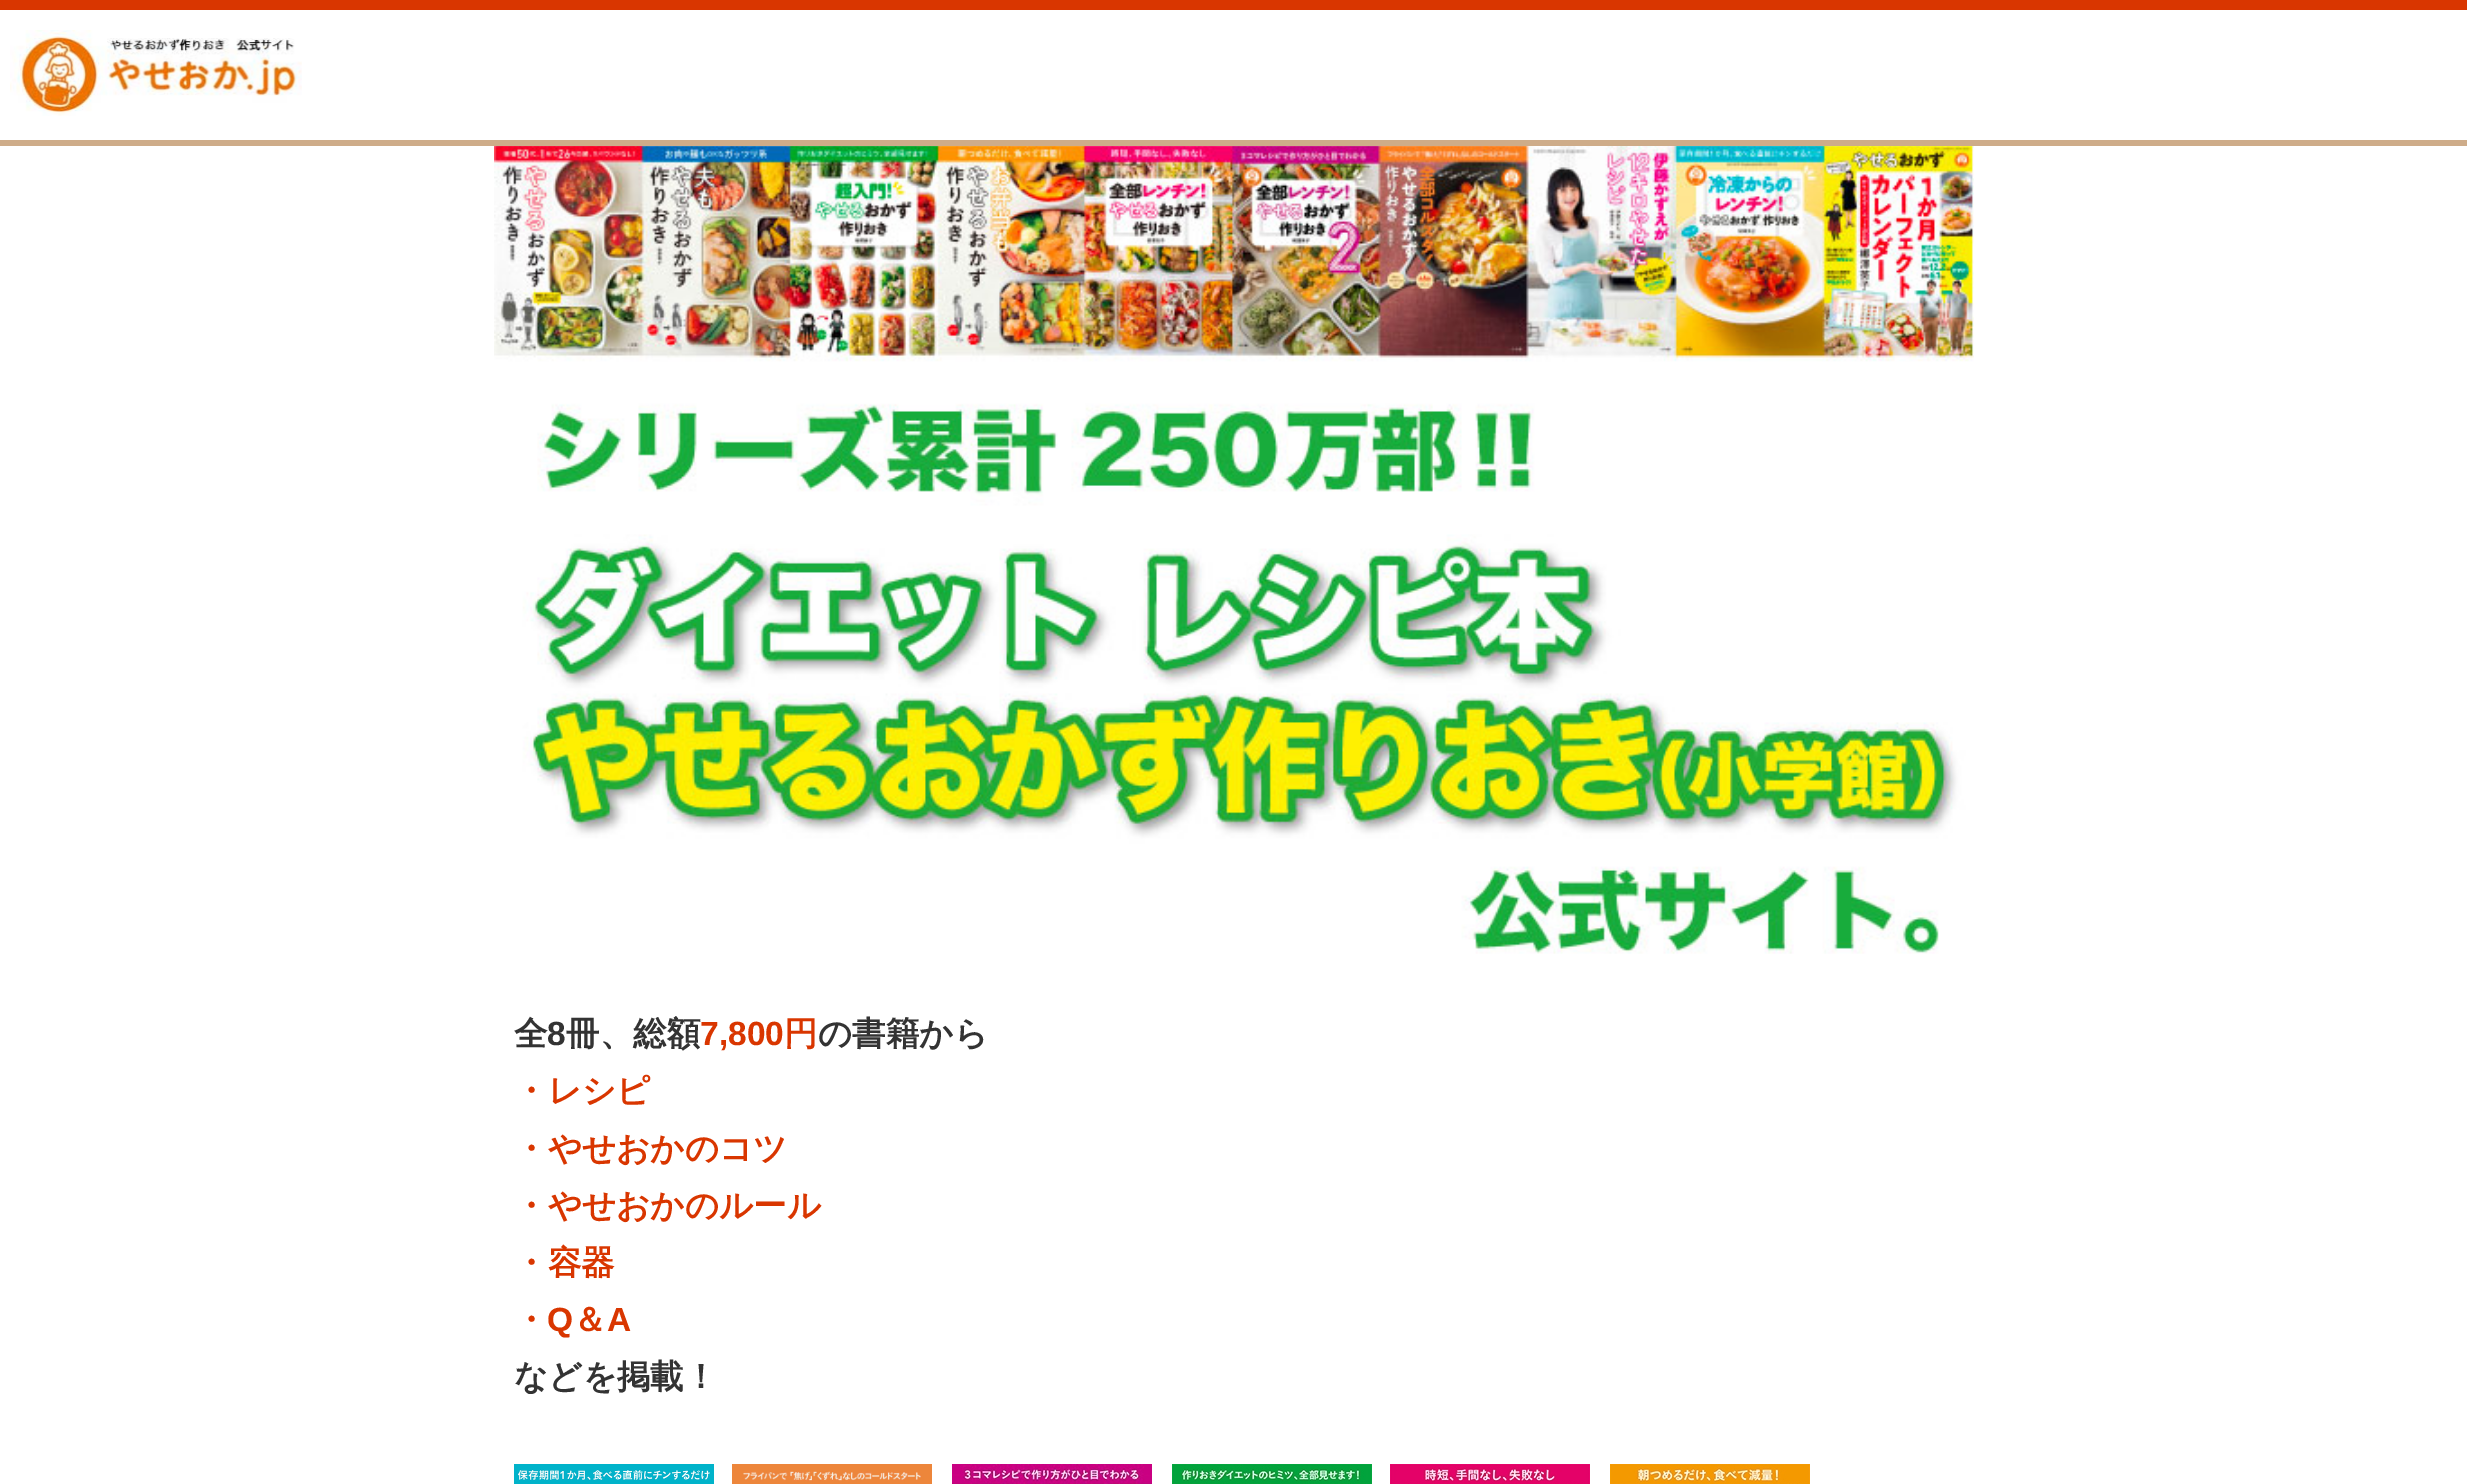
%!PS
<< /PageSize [2467 1484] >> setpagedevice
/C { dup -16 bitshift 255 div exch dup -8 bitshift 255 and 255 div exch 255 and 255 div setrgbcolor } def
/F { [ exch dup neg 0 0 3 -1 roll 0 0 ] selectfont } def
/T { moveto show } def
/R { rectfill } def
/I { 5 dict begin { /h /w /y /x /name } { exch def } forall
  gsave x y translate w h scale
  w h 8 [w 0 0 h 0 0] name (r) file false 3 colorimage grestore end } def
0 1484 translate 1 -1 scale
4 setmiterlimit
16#FFFFFF C
0 0 2467 1484 R
16#D93600 C
0 0 2467 10 R
16#CEAC89 C
0 140 2467 6 R
(1.rgb) 10 30 292 86 I
(2.rgb) 494 146 1480 808 I
/WenQuanYiZenHei-Bold 33.5 F
16#333333 C
(全) 514 1045 T
/LiberationSans-Bold 33.5 F
(8) 547 1045 T
/WenQuanYiZenHei-Bold 33.5 F
(冊、総額) 566 1045 T
/LiberationSans-Bold 33.5 F
16#D93600 C
(7,800) 700 1045 T
/WenQuanYiZenHei-Bold 33.5 F
(円) 784 1045 T
16#333333 C
(の書籍から) 818 1045 T
16#D93600 C
(・レシピ) 514 1102 T
(・やせおかのコツ) 514 1160 T
(・やせおかのルール) 514 1217 T
(・容器) 514 1274 T
(・) 514 1331 T
/LiberationSans-Bold 33.5 F
(Q) 547 1331 T
/WenQuanYiZenHei-Bold 33.5 F
(＆) 573 1331 T
/LiberationSans-Bold 33.5 F
(A) 607 1331 T
/WenQuanYiZenHei-Bold 33.5 F
16#333333 C
(などを掲載！) 514 1388 T
(3.rgb) 514 1464 200 20 I
(4.rgb) 732 1464 200 20 I
(5.rgb) 952 1464 200 20 I
(6.rgb) 1172 1464 200 20 I
(7.rgb) 1390 1464 200 20 I
(8.rgb) 1610 1464 200 20 I
showpage
